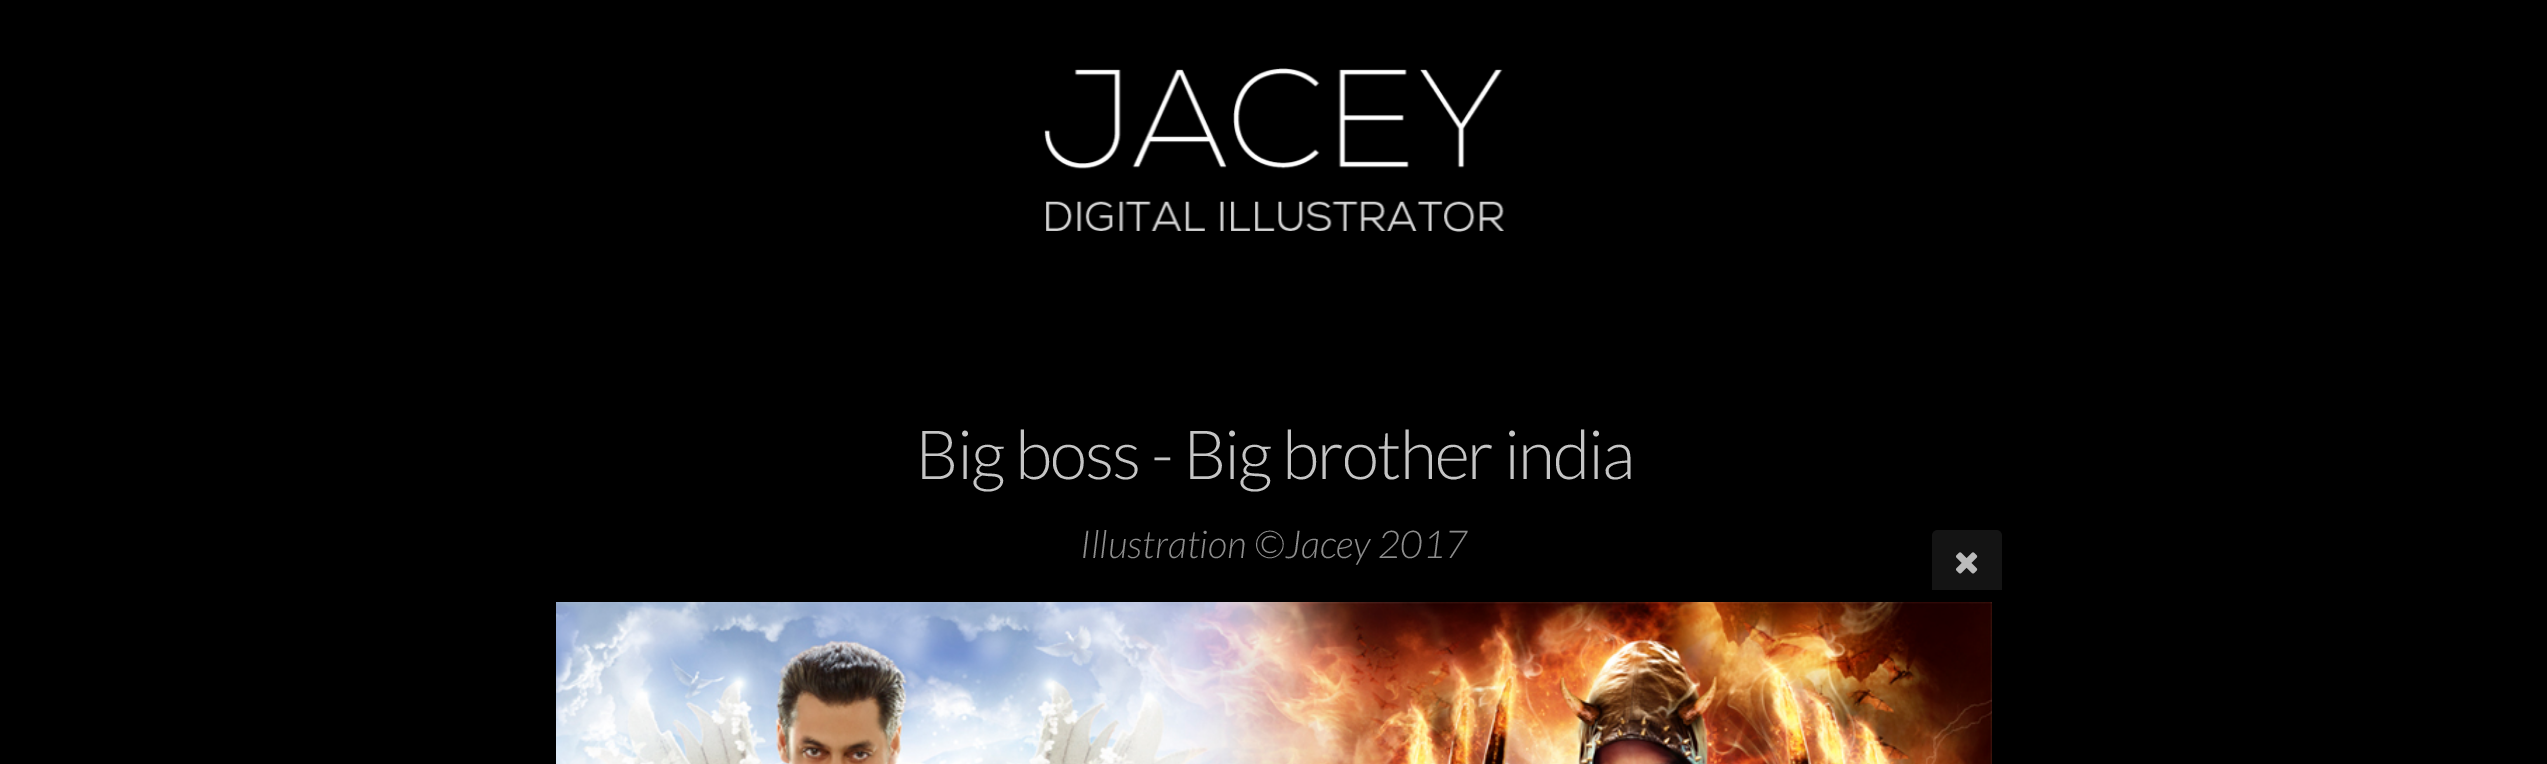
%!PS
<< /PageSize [2547 764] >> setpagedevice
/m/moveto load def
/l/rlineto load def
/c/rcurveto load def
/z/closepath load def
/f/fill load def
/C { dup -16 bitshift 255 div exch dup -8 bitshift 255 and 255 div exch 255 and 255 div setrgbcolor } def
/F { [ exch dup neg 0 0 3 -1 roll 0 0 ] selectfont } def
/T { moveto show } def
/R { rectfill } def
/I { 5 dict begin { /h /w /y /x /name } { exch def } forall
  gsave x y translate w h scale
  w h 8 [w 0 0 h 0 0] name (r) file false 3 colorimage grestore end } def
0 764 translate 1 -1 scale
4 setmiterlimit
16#000000 C
0 0 2547 764 R
(1.rgb) 1044 68 460 165 I
/Lato-Light 68 F
16#C5C5C5 C
915 479 m -1.9 0 (Big boss - Big brother india) ashow
/Lato-LightItalic 38.4 F
16#8C8C8C C
(Illustration ©Jacey 2017) 1080 558 T
16#141414 C
1938 530 m 58 0 l 3.5 0 6 2.5 6 6 c 0 54 l -70 0 l 0 -54 l 0 -3.5 2.5 -6 6 -6 c z f
(2.rgb) 1956 552 22 22 I
(3.rgb) 556 602 1436 162 I
showpage
